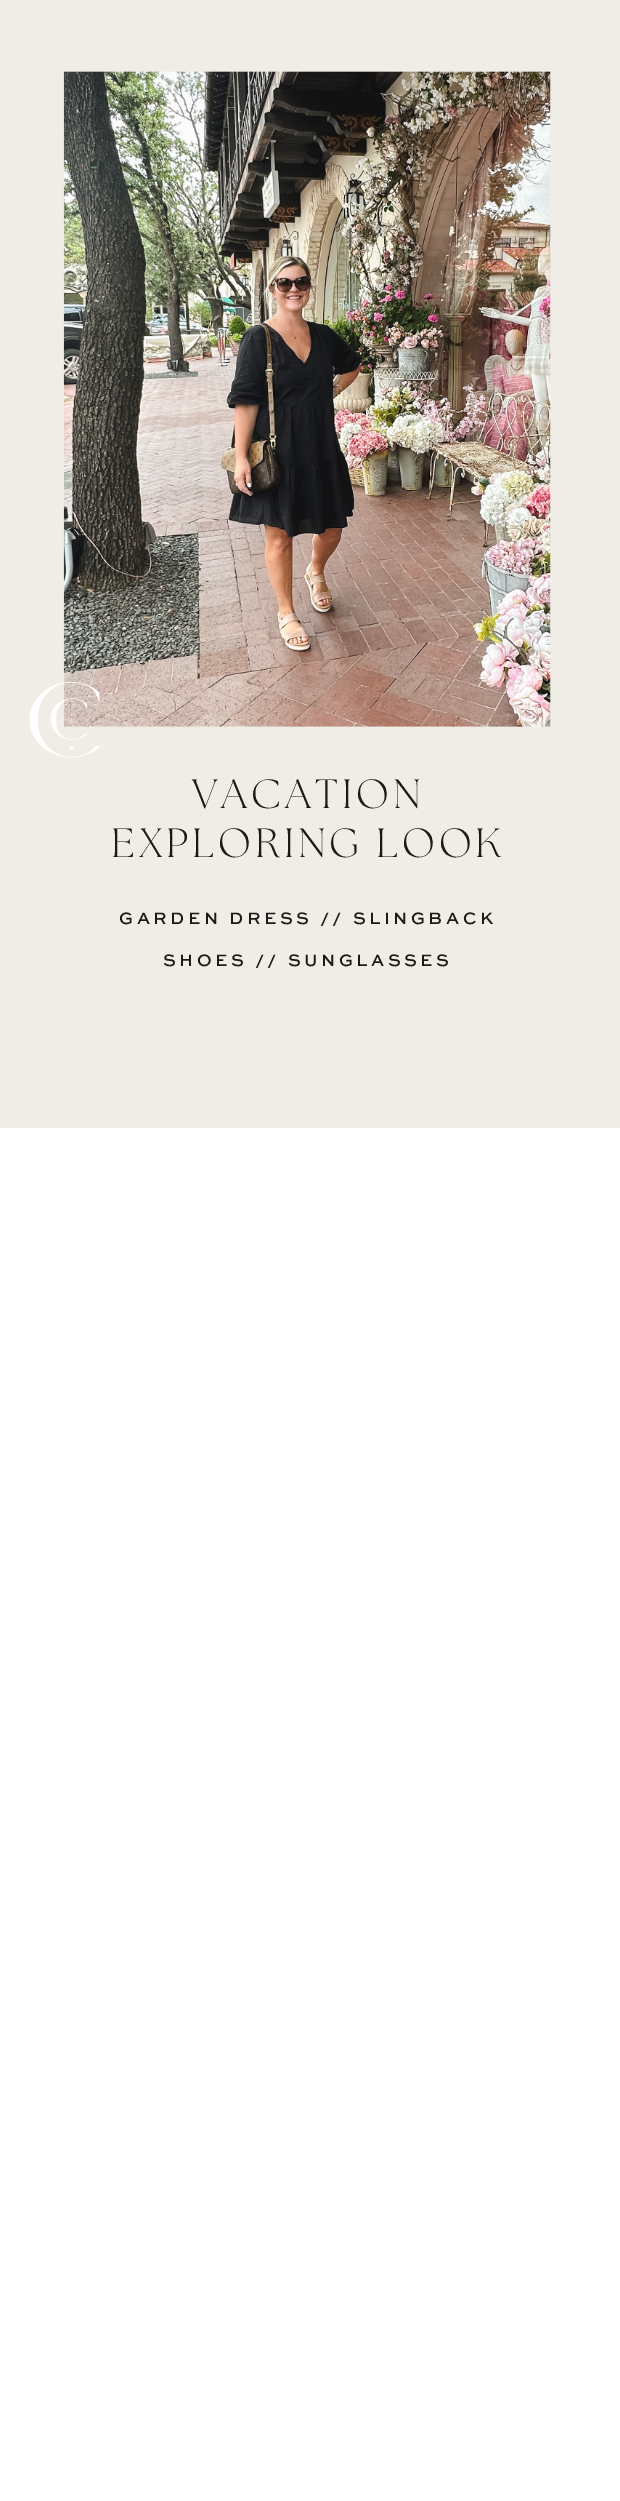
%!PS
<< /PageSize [620 2501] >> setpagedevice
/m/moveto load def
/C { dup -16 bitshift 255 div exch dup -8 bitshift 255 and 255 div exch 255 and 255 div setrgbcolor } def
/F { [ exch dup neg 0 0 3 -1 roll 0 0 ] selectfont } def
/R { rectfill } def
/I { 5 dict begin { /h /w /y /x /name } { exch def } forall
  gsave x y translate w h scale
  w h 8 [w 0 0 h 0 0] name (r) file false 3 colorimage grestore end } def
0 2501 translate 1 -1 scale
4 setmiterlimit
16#FFFFFF C
0 0 620 2501 R
16#EFEDE5 C
0 0 620 1128 R
(1.rgb) 63 71 488 656 I
(2.rgb) 29 682 71 76 I
/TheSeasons-Light 40.75 F
16#1B1A18 C
192 808 m 4 0 (VACATION) ashow
111 857 m 4 0 (EXPLORING LOOK) ashow
/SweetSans-Medium 17.4 F
119 924 m 3.5 0 (GARDEN DRESS // SLINGBACK) ashow
163 966 m 3.5 0 (SHOES // SUNGLASSES) ashow
showpage
